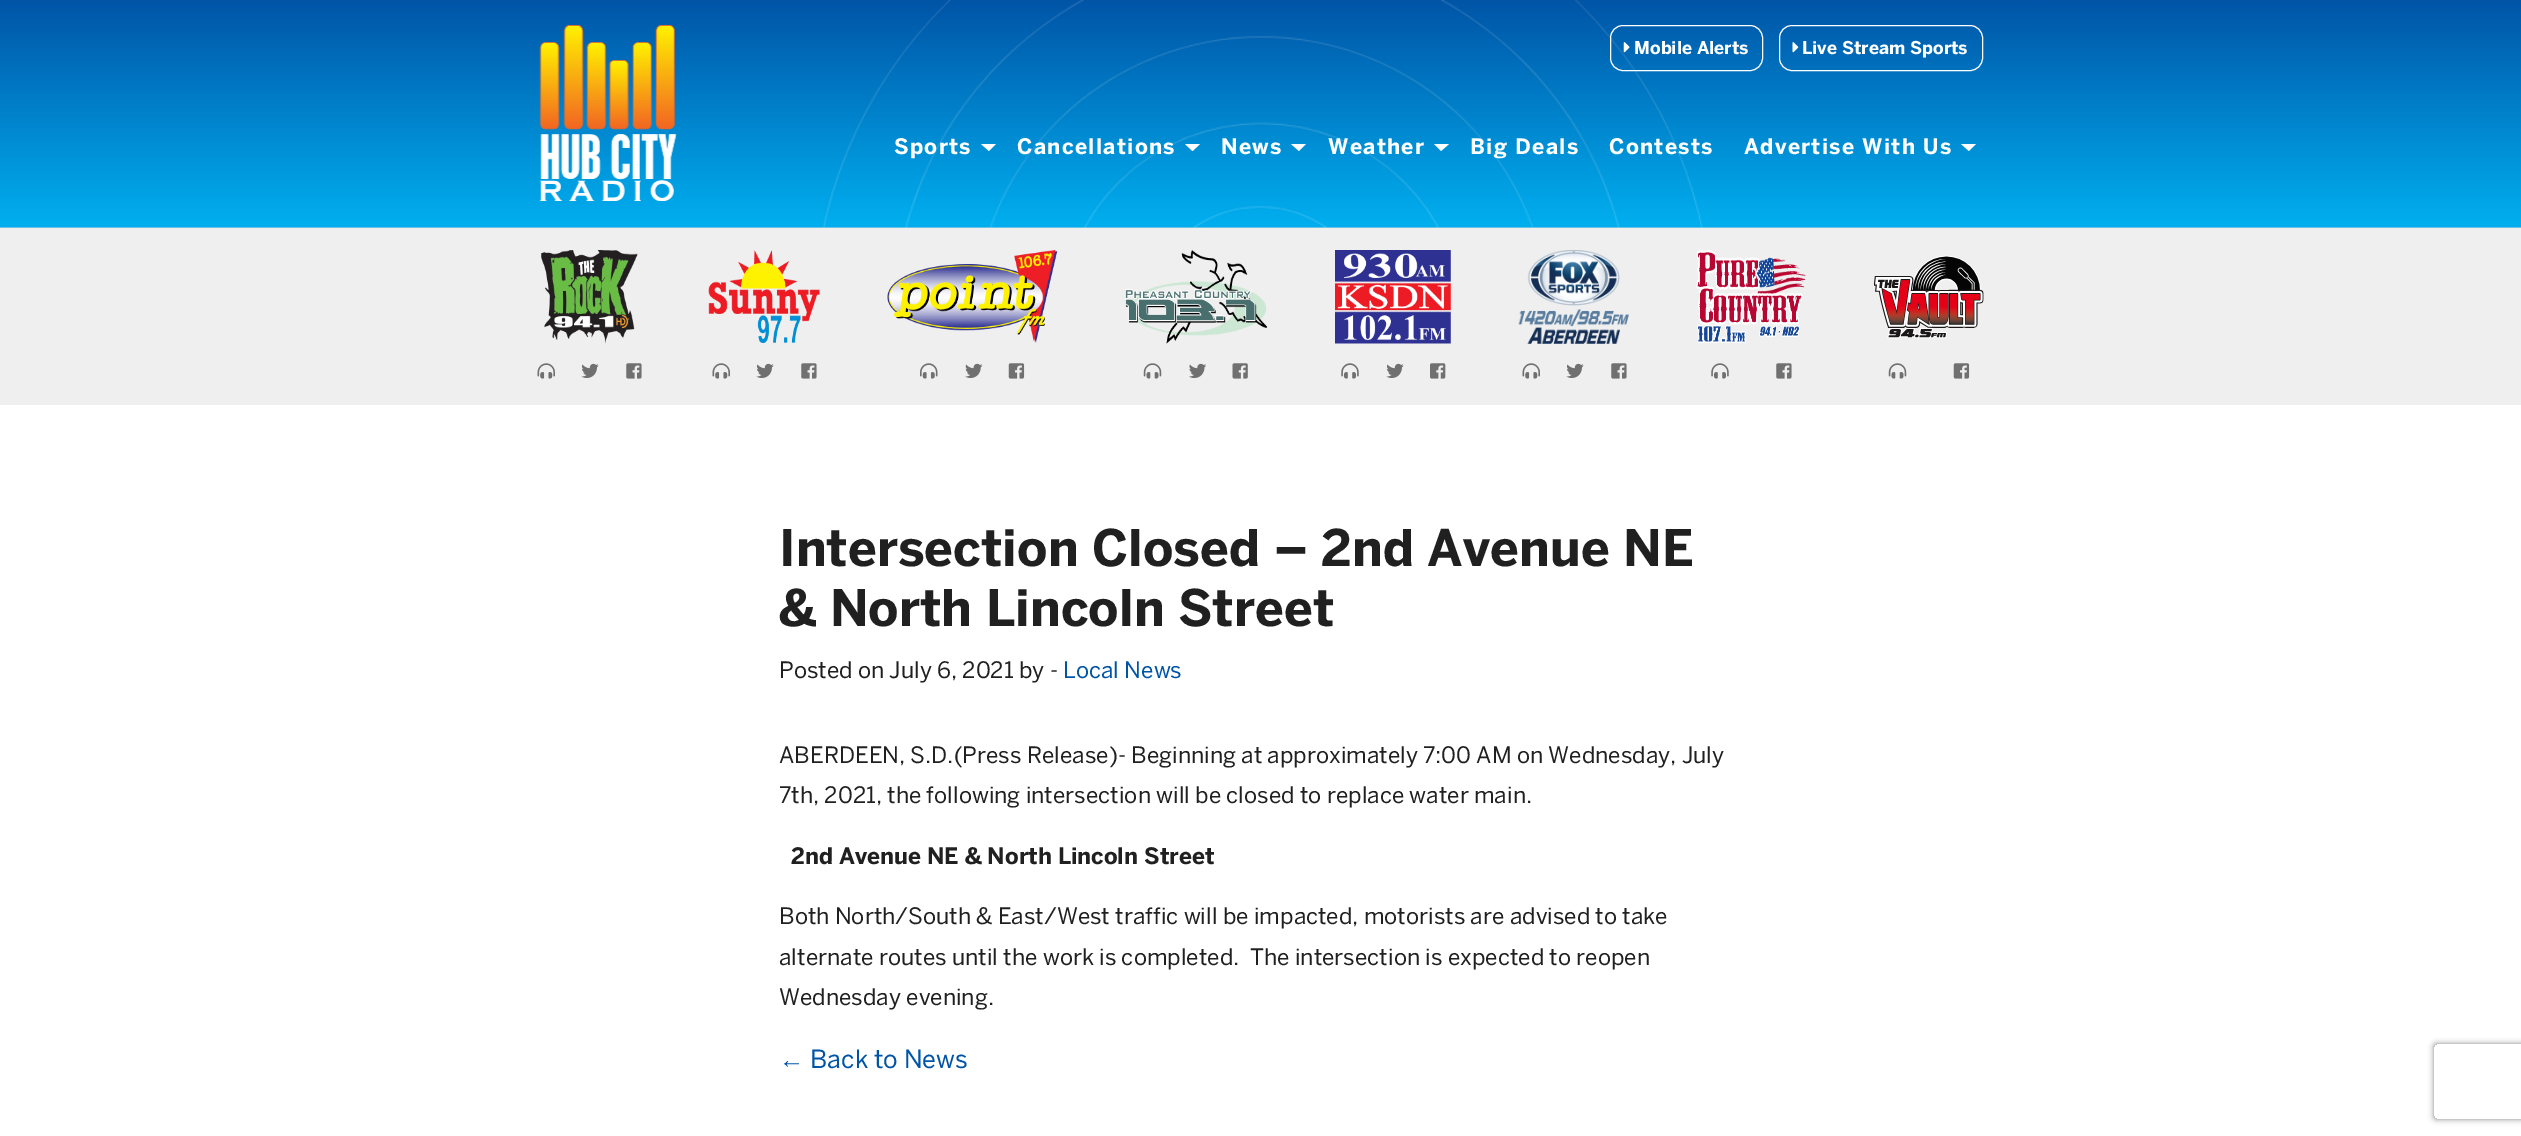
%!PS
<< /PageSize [2521 1136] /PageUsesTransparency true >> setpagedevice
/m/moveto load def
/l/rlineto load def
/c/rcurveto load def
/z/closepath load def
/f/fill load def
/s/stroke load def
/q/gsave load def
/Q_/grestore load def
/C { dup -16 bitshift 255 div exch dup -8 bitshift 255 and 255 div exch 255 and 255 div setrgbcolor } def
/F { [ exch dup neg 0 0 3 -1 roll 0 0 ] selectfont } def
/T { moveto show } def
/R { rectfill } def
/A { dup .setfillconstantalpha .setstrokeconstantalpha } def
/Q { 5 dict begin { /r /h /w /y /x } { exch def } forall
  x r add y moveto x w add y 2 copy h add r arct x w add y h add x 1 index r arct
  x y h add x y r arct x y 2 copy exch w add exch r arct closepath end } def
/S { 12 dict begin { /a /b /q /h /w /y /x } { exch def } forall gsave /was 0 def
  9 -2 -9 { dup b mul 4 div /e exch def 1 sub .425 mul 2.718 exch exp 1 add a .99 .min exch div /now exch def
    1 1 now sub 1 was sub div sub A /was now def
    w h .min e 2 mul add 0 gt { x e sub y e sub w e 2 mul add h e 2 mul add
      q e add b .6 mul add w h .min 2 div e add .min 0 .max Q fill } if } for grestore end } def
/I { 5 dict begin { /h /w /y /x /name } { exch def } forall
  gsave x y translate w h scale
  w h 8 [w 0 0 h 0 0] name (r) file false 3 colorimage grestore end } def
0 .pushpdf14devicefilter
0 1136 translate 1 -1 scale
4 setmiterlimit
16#FFFFFF C
0 0 2521 1136 R
16#D6D6D6 C
0 227 2521 1 R
(1.rgb) 0 0 2521 228 I
(2.rgb) 539 25 138 176 I
16#FFFFFF C
1610.5 25.5 152 45 12.5 Q s
(3.rgb) 1623 42 7 11 I
/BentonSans-Bold 17.5 F
(Mobile Alerts) 1634 54 T
1779.5 25.5 203 45 12.5 Q s
(4.rgb) 1792 42 7 11 I
(Live Stream Sports) 1802 54 T
/BentonSans-Bold 21.25 F
894 154 m 1.25 0 (Sports) ashow
981 144 m 15 0 l -7 7 l z f
1017 154 m 1.25 0 (Cancellations) ashow
1185 144 m 15 0 l -7.5 7 l z f
1221 154 m 1.25 0 (News) ashow
1291 144 m 15 0 l -7 7 l z f
1328 154 m 1.25 0 (Weather) ashow
1434 144 m 15 0 l -8 7 l z f
1470 154 m 1.25 0 (Big Deals) ashow
1609 154 m 1.25 0 (Contests) ashow
1744 154 m 1.25 0 (Advertise With Us) ashow
1961 144 m 15 0 l -7 7 l z f
16#EFEFEF C
0 228 2521 177 R
(5.rgb) 541 250 97 94 I
(6.rgb) 537 363 18 16 I
(7.rgb) 581 363 18 15 I
(8.rgb) 626 363 16 16 I
(9.rgb) 708 250 112 93 I
(6.rgb) 712 363 18 16 I
(7.rgb) 756 363 18 15 I
(8.rgb) 801 363 16 16 I
(10.rgb) 887 250 171 93 I
(11.rgb) 920 363 18 16 I
(12.rgb) 965 363 18 15 I
(13.rgb) 1008 363 17 16 I
(14.rgb) 1125 250 143 94 I
(15.rgb) 1143 363 19 16 I
(16.rgb) 1189 363 17 15 I
(17.rgb) 1232 363 16 16 I
(18.rgb) 1335 250 116 94 I
(19.rgb) 1341 363 18 16 I
(7.rgb) 1386 363 18 15 I
(20.rgb) 1430 363 16 16 I
(21.rgb) 1518 250 111 94 I
(6.rgb) 1522 363 18 16 I
(7.rgb) 1566 363 18 15 I
(8.rgb) 1611 363 16 16 I
(22.rgb) 1696 250 110 93 I
(19.rgb) 1711 363 18 16 I
(8.rgb) 1776 363 16 16 I
(23.rgb) 1874 255 110 84 I
(15.rgb) 1888 363 19 16 I
(13.rgb) 1953 363 17 16 I
/BentonSans-Bold 50 F
16#202020 C
(Intersection Closed – 2nd Avenue NE) 779 566 T
(& North Lincoln Street) 779 626 T
/BentonSans-Regular 22.5 F
(Posted on July 6, 2021 by -) 779 678 T
16#0054A6 C
(Local News) 1063 678 T
16#202020 C
(ABERDEEN, S.D.\(Press Release\)- Beginning at approximately 7:00 AM on Wednesday, July) 779 763 T
(7th, 2021, the following intersection will be closed to replace water main.) 779 803 T
/BentonSans-Bold 22.5 F
(2nd Avenue NE & North Lincoln Street) 791 864 T
/BentonSans-Regular 22.5 F
(Both North/South & East/West traffic will be impacted, motorists are advised to take) 779 924 T
(alternate routes until the work is completed.  The intersection is expected to reopen) 779 965 T
(Wednesday evening.) 779 1005 T
/LiberationSans-Regular 25 F
16#0054A6 C
(←) 779 1068 T
/BentonSans-Regular 25 F
(Back to News) 810 1068 T
q
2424 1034 m 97 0 l 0 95 l -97 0 l z 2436.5 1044 m 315 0 l 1.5 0 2.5 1 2.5 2.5 c 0 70 l 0 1.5 -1 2.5 -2.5 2.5 c -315 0 l -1.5 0 -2.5 -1 -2.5 -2.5 c 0 -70 l 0 -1.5 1 -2.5 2.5 -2.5 c z eoclip newpath
16#808080 C
2434 1044 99 75 2.5 3 1 S
Q_
.poppdf14devicefilter showpage
